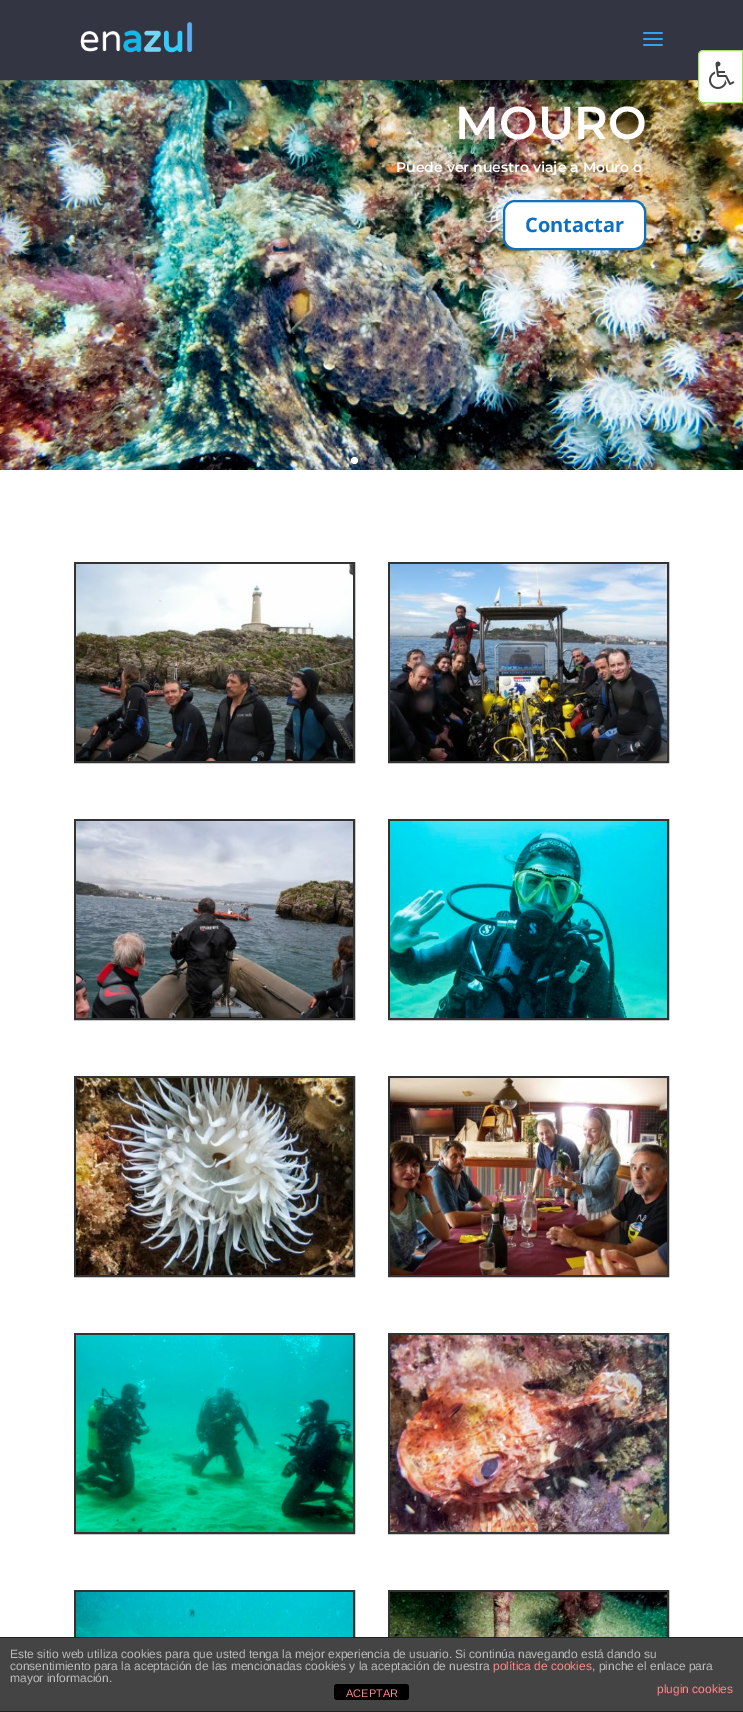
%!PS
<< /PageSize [743 1712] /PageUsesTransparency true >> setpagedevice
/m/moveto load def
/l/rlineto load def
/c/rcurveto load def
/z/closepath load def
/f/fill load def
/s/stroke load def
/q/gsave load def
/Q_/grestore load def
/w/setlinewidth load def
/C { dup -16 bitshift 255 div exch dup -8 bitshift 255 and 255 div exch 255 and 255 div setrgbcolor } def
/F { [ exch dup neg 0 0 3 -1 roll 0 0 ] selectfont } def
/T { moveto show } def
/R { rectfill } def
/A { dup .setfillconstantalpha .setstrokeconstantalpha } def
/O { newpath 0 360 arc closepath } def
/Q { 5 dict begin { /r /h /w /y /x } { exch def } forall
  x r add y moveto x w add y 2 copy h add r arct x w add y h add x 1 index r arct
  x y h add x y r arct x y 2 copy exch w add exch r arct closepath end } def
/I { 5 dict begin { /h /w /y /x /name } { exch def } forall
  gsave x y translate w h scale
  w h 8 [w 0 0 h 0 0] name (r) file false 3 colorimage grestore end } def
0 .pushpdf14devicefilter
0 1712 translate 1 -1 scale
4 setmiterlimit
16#FFFFFF C
0 0 743 1712 R
16#333642 C
0 0 743 80 R
(4.rgb) 0 80 743 390 I
16#FFFFFF C
703 50.5 m 39.5 0 l 0 52 l -39.5 0 l -2.5 0 -4.5 -2 -4.5 -4.5 c 0 -43 l 0 -2.5 2 -4.5 4.5 -4.5 c z q f Q_
16#A9DD6E C
s
(1.rgb) 709 61 26 28 I
0.1 A
16#000000 C
0 80 698 1 R
1 A
(2.rgb) 80 21 113 32 I
(3.rgb) 643 32 20 14 I
/Montserrat-Thin 46 F
16#FFFFFF C
(MOURO) 455 139 T
/Montserrat-Thin 14 F
(Puede ver nuestro viaje a Mouro o) 396 172 T
504 201 141 48 11 Q q f Q_
16#0C71C3 C
2 w
s
/OpenSans-Bold 20 F
(Contactar) 525 232 T
16#FFFFFF C
354.5 460.5 3.5 O f
0.25 A
371.5 460.5 3.5 O f
388.5 460.5 3.5 O f
1 A
16#333333 C
75 563 279 199 rectstroke
(5.rgb) 76 564 277 197 I
389 563 279 199 rectstroke
(6.rgb) 390 564 277 197 I
75 820 279 199 rectstroke
(7.rgb) 76 821 277 197 I
389 820 279 199 rectstroke
(8.rgb) 390 821 277 197 I
75 1077 279 199 rectstroke
(9.rgb) 76 1078 277 197 I
389 1077 279 199 rectstroke
(10.rgb) 390 1078 277 197 I
75 1334 279 199 rectstroke
(11.rgb) 76 1335 277 197 I
389 1334 279 199 rectstroke
(12.rgb) 390 1335 277 197 I
75 1591 279 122 rectstroke
(13.rgb) 76 1592 277 45 I
389 1591 279 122 rectstroke
(14.rgb) 390 1592 277 45 I
16#444444 C
0 1638 743 73 R
16#222222 C
0 1637 743 1 R
0 1711 743 1 R
/LiberationSans-Regular 12 F
16#BBBBBB C
(Este sitio web utiliza cookies para que usted tenga la mejor experiencia de usuario. Si continúa navegando está dando su) 10 1658 T
(consentimiento para la aceptación de las mencionadas cookies y la aceptación de nuestra) 10 1670 T
16#FF8888 C
(política de cookies) 493 1670 T
16#BBBBBB C
(, pinche el enlace para) 592 1670 T
(mayor información.) 10 1682 T
16#FF8888 C
(plugin cookies) 657 1693 T
16#000000 C
334 1684 75 16 3 Q f
/LiberationSans-Regular 11 F
16#FF8888 C
(ACEPTAR) 346 1697 T
.poppdf14devicefilter showpage
